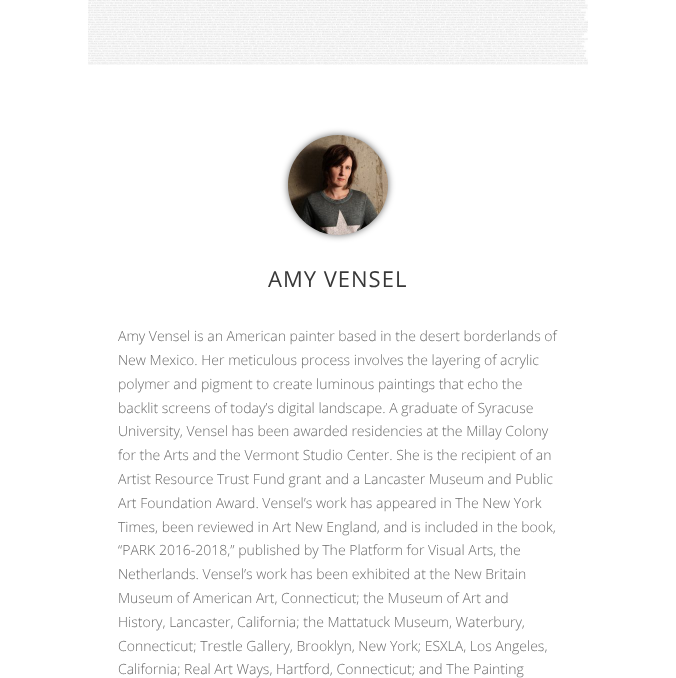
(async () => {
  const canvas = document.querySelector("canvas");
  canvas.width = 676;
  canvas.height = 678;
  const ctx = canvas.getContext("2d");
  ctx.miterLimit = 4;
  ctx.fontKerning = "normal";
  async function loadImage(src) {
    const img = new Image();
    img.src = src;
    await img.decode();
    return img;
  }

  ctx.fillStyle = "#ffffff";
  ctx.fillRect(0, 0, 676, 678);
  ctx.drawImage(await loadImage("img/1.png"), 88, 0, 500, 65);
  ctx.fillStyle = "rgba(0, 0, 0, 0.6)";
  ctx.filter = "blur(3.5px)";
  ctx.beginPath();
  ctx.roundRect(288, 135, 100, 100, 50);
  ctx.fill();
  ctx.filter = "none";
  ctx.drawImage(await loadImage("img/2.png"), 288, 135, 100, 100);
  ctx.letterSpacing = "1px";
  ctx.font = "22px Open Sans";
  ctx.fillStyle = "#383838";
  ctx.fillText("AMY VENSEL", 268, 287);
  ctx.letterSpacing = "0px";
  ctx.font = "300 14px Open Sans";
  ctx.fillStyle = "#6b6b6b";
  for (const [text, x, y] of [
    ["Amy Vensel is an American painter based in the desert borderlands of", 118, 341],
    ["New Mexico. Her meticulous process involves the layering of acrylic", 118, 365],
    ["polymer and pigment to create luminous paintings that echo the", 118, 389],
    ["backlit screens of today’s digital landscape. A graduate of Syracuse", 118, 413],
    ["University, Vensel has been awarded residencies at the Millay Colony", 118, 436],
    ["for the Arts and the Vermont Studio Center. She is the recipient of an", 118, 460],
    ["Artist Resource Trust Fund grant and a Lancaster Museum and Public", 118, 484],
    ["Art Foundation Award. Vensel’s work has appeared in The New York", 118, 508],
    ["Times, been reviewed in Art New England, and is included in the book,", 118, 532],
    ["“PARK 2016-2018,” published by The Platform for Visual Arts, the", 118, 555],
    ["Netherlands. Vensel’s work has been exhibited at the New Britain", 118, 579],
    ["Museum of American Art, Connecticut; the Museum of Art and", 118, 603],
    ["History, Lancaster, California; the Mattatuck Museum, Waterbury,", 118, 627],
    ["Connecticut; Trestle Gallery, Brooklyn, New York; ESXLA, Los Angeles,", 118, 651],
    ["California; Real Art Ways, Hartford, Connecticut; and The Painting", 118, 674],
  ]) {
    ctx.fillText(text, x, y);
  }
})();
